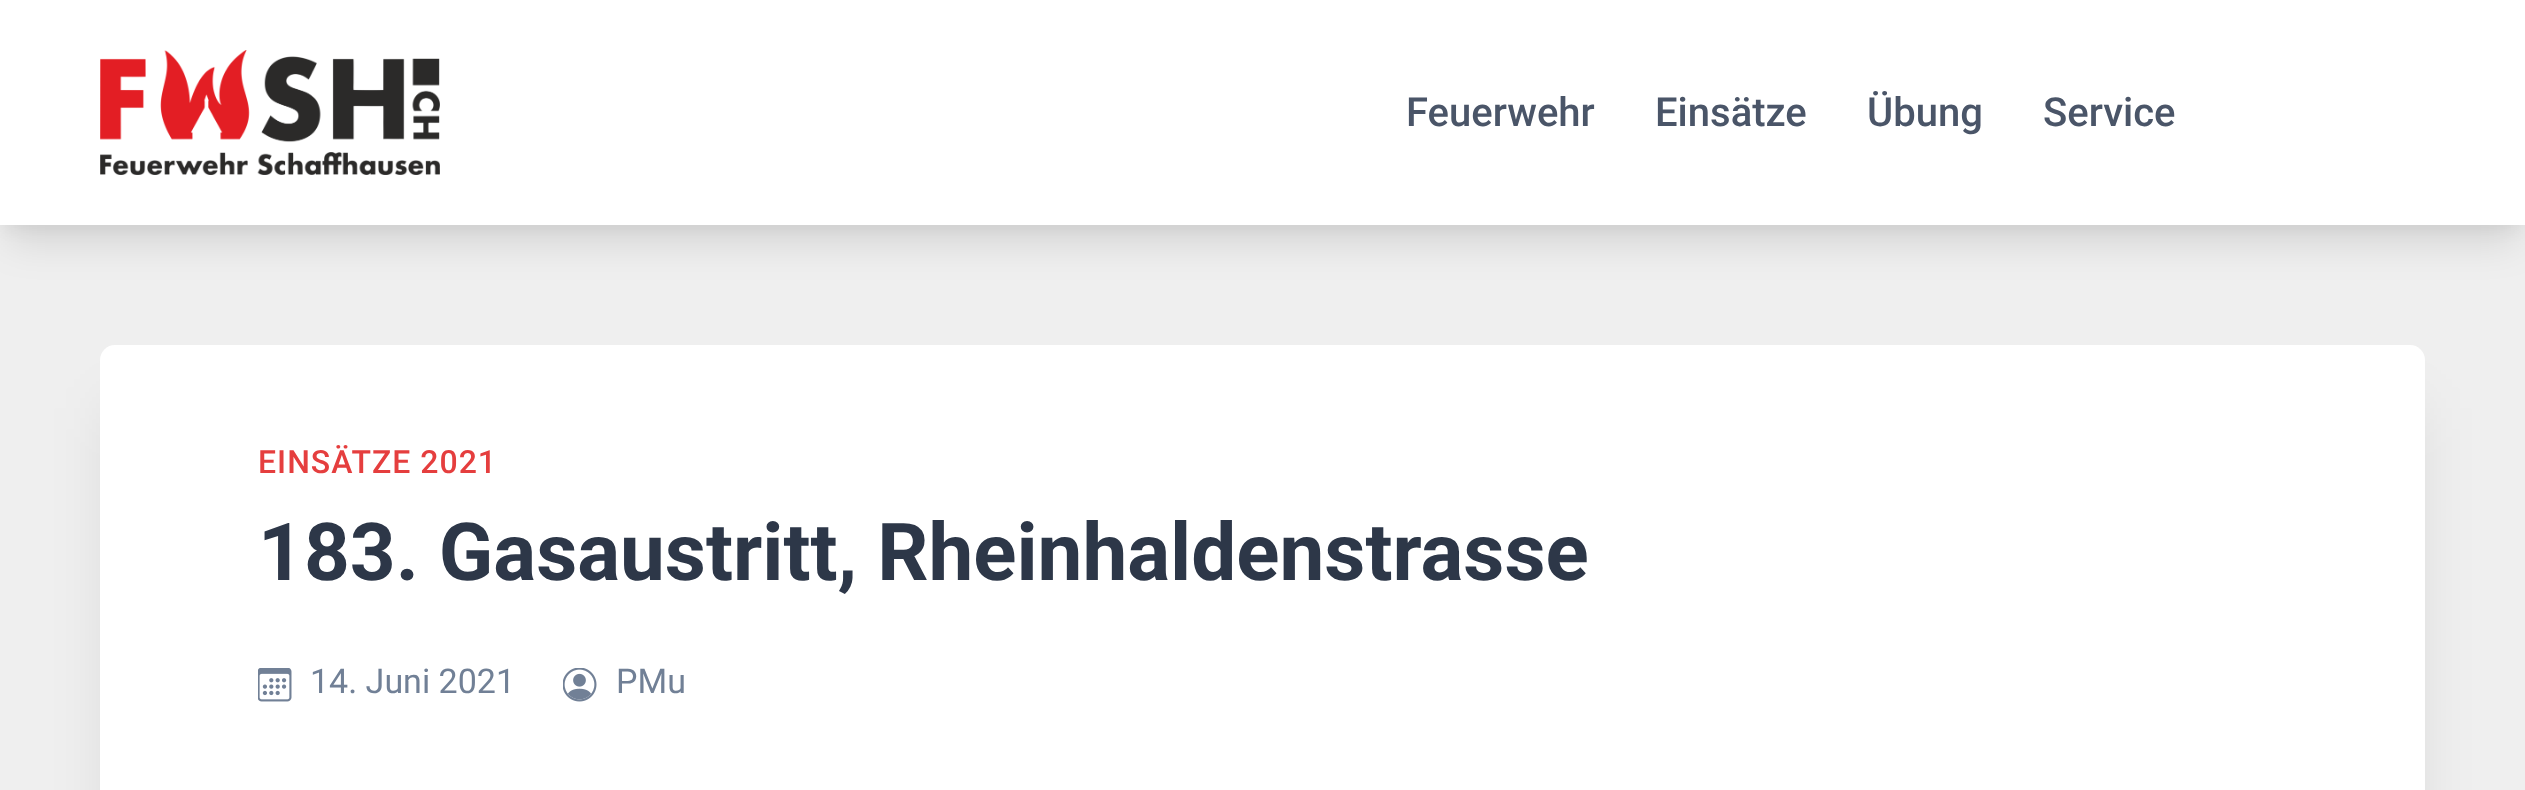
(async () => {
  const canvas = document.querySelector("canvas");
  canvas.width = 2525;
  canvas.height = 790;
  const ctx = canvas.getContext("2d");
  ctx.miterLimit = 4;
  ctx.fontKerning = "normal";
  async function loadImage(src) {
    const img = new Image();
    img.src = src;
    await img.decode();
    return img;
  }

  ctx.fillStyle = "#efefef";
  ctx.fillRect(0, 0, 2525, 790);
  ctx.fillStyle = "rgba(0, 0, 0, 0.05)";
  ctx.filter = "blur(7.5px)";
  ctx.beginPath();
  ctx.rect(5, 15, 2515, 215);
  ctx.fill();
  ctx.filter = "none";
  ctx.fillStyle = "rgba(0, 0, 0, 0.1)";
  ctx.filter = "blur(19px)";
  ctx.beginPath();
  ctx.rect(8, 33, 2510, 210);
  ctx.fill();
  ctx.filter = "none";
  ctx.fillStyle = "#ffffff";
  ctx.fillRect(0, 0, 2525, 225);
  ctx.drawImage(await loadImage("img/1.png"), 100, 50, 340, 125);
  ctx.fillStyle = "rgba(0, 0, 0, 0.1)";
  ctx.filter = "blur(31px)";
  ctx.beginPath();
  ctx.roundRect(113, 408, 2300, 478, 2.5);
  ctx.fill();
  ctx.filter = "none";
  ctx.fillStyle = "#ffffff";
  ctx.beginPath();
  ctx.roundRect(100, 345, 2325, 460, 15);
  ctx.fill();
  ctx.drawImage(await loadImage("img/2.png"), 258, 668, 34, 34);
  ctx.drawImage(await loadImage("img/3.png"), 563, 668, 34, 34);
  ctx.font = "500 40px Roboto";
  ctx.fillStyle = "#4a5568";
  for (const [text, x, y] of [
    ["Feuerwehr", 1406, 126],
    ["Einsätze", 1655, 126],
    ["Übung", 1867, 126],
    ["Service", 2043, 126],
  ]) {
    ctx.fillText(text, x, y);
  }
  ctx.letterSpacing = "1px";
  ctx.font = "500 32px Roboto";
  ctx.fillStyle = "#e53e3e";
  ctx.fillText("EINSÄTZE 2021", 258, 473);
  ctx.letterSpacing = "0px";
  ctx.font = "bold 80px Roboto";
  ctx.fillStyle = "#2d3748";
  ctx.fillText("183. Gasaustritt, Rheinhaldenstrasse", 258, 580);
  ctx.font = "34px Roboto";
  ctx.fillStyle = "#718096";
  ctx.fillText("14. Juni 2021", 310, 693);
  ctx.fillText("PMu", 616, 693);
})();
